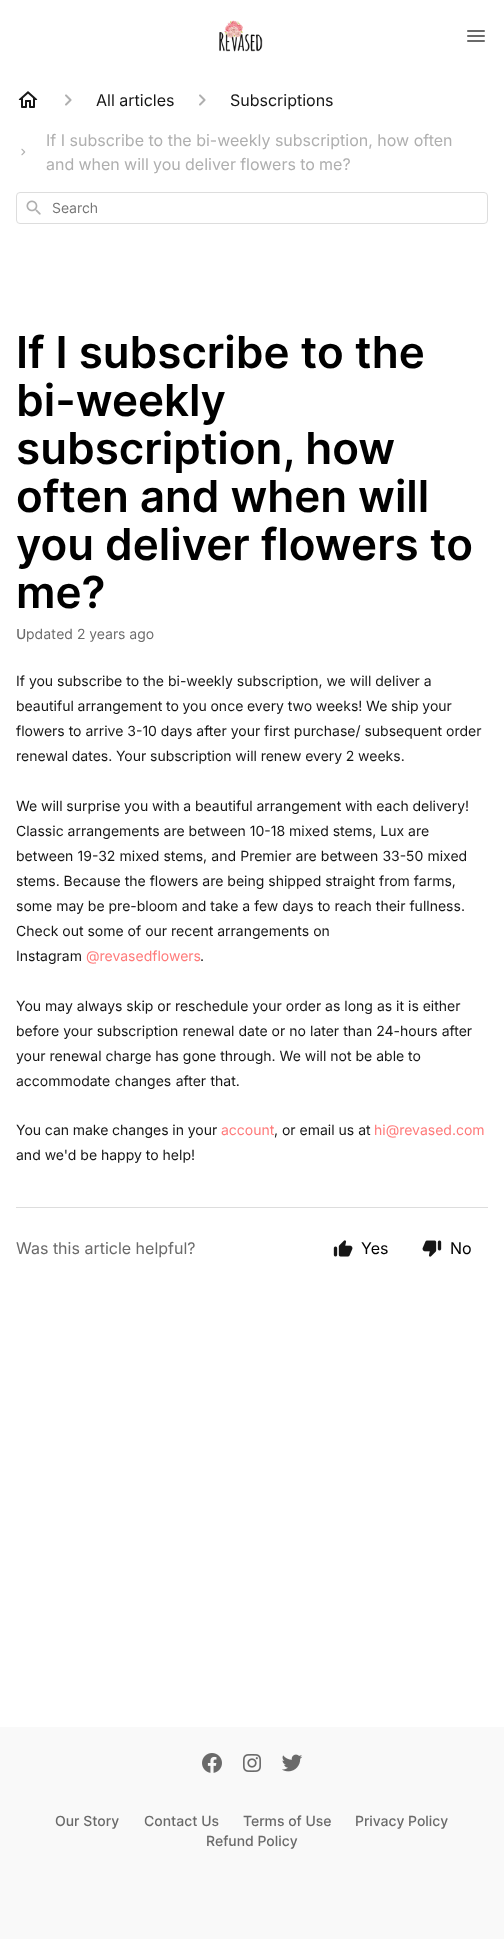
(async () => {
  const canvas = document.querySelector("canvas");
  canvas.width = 504;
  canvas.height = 1939;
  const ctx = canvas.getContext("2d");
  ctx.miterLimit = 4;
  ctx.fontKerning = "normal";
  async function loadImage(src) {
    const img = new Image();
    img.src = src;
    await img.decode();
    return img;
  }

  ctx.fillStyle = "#ffffff";
  ctx.fillRect(0, 0, 504, 1939);
  ctx.drawImage(await loadImage("img/1.png"), 219, 20, 44, 32);
  ctx.drawImage(await loadImage("img/2.png"), 467, 30, 18, 12);
  ctx.drawImage(await loadImage("img/3.png"), 18, 91, 20, 17);
  ctx.drawImage(await loadImage("img/4.png"), 65, 94, 7, 12);
  ctx.drawImage(await loadImage("img/4.png"), 199, 94, 7, 12);
  ctx.drawImage(await loadImage("img/5.png"), 21, 148, 5, 8);
  ctx.beginPath();
  ctx.roundRect(16.5, 192.5, 471, 31, 3.5);
  ctx.strokeStyle = "#dddddd";
  ctx.stroke();
  ctx.drawImage(await loadImage("img/6.png"), 26, 200, 15, 15);
  ctx.fillStyle = "#dddddd";
  ctx.fillRect(16, 1207, 472, 1);
  ctx.drawImage(await loadImage("img/7.png"), 333, 1240, 20, 17);
  ctx.drawImage(await loadImage("img/8.png"), 422, 1240, 20, 17);
  ctx.fillStyle = "#f9f9f9";
  ctx.fillRect(0, 1727, 504, 212);
  ctx.drawImage(await loadImage("img/9.png"), 202, 1753, 20, 20);
  ctx.drawImage(await loadImage("img/10.png"), 243, 1754, 18, 18);
  ctx.drawImage(await loadImage("img/11.png"), 282, 1754, 21, 18);
  ctx.font = "16px Inter";
  ctx.fillStyle = "#161616";
  ctx.fillText("All articles", 96, 106);
  ctx.fillText("Subscriptions", 230, 106);
  ctx.fillStyle = "#afafaf";
  ctx.fillText("If I subscribe to the bi-weekly subscription, how often", 46, 146);
  ctx.wordSpacing = "-0.25px";
  ctx.fillText("and when will you deliver flowers to me?", 46, 170);
  ctx.wordSpacing = "0px";
  ctx.font = "14px 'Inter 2'";
  ctx.fillStyle = "#757575";
  ctx.fillText("Search", 52, 213);
  ctx.font = "600 44px Inter";
  ctx.fillStyle = "#000000";
  for (const [text, x, y] of [
    ["If I subscribe to the", 16, 368],
    ["bi-weekly", 16, 416],
    ["subscription, how", 16, 464],
    ["often and when will", 16, 512],
    ["you deliver flowers to", 16, 560],
    ["me?", 16, 608],
  ]) {
    ctx.fillText(text, x, y);
  }
  ctx.font = "500 14px Noto Sans";
  ctx.fillStyle = "#6a6a6a";
  ctx.fillText("U", 16, 639);
  ctx.font = "14px 'Inter 2'";
  ctx.fillText("pdated 2 years ago", 26, 639);
  ctx.font = "14px Inter";
  ctx.fillStyle = "#161616";
  ctx.fillText("If you subscribe to the bi-weekly subscription, we will deliver a", 16, 686);
  ctx.wordSpacing = "-0.25px";
  ctx.fillText("beautiful arrangement to you once every two weeks! We ship your", 16, 711);
  ctx.wordSpacing = "0px";
  ctx.fillText("flowers to arrive 3-10 days after your first purchase/ subsequent order", 16, 736);
  ctx.wordSpacing = "-0.25px";
  ctx.fillText("renewal dates. Your subscription will renew every 2 weeks.", 16, 761);
  ctx.fillText("We will surprise you with a beautiful arrangement with each delivery!", 16, 811);
  ctx.wordSpacing = "0px";
  ctx.fillText("Classic arrangements are between 10-18 mixed stems, Lux are", 16, 836);
  ctx.wordSpacing = "0.25px";
  ctx.fillText("between 19-32 mixed stems, and Premier are between 33-50 mixed", 16, 861);
  ctx.wordSpacing = "0px";
  for (const [text, x, y] of [
    ["stems. Because the flowers are being shipped straight from farms,", 16, 886],
    ["some may be pre-bloom and take a few days to reach their fullness.", 16, 911],
    ["Check out some of our recent arrangements on", 16, 936],
    ["Instagram", 16, 961],
  ]) {
    ctx.fillText(text, x, y);
  }
  ctx.fillStyle = "#ff7a7a";
  ctx.fillText("@revasedflowers", 86, 961);
  ctx.fillStyle = "#161616";
  ctx.fillText(".", 200, 961);
  ctx.fillText("You may always skip or reschedule your order as long as it is either", 16, 1011);
  ctx.wordSpacing = "0.1px";
  ctx.fillText("before your subscription renewal date or no later than 24-hours after", 16, 1036);
  ctx.wordSpacing = "0px";
  ctx.fillText("your renewal charge has gone through. We will not be able to", 16, 1061);
  ctx.wordSpacing = "0.5px";
  ctx.fillText("accommodate changes after that.", 16, 1086);
  ctx.wordSpacing = "-0.25px";
  ctx.fillText("You can make changes in your", 16, 1135);
  ctx.wordSpacing = "0px";
  ctx.fillStyle = "#ff7a7a";
  ctx.fillText("account", 221, 1135);
  ctx.fillStyle = "#161616";
  ctx.fillText(", or email us at", 274, 1135);
  ctx.fillStyle = "#ff7a7a";
  ctx.fillText("hi@revased.com", 374, 1135);
  ctx.fillStyle = "#161616";
  ctx.fillText("and we'd be happy to help!", 16, 1160);
  ctx.font = "16px Inter";
  ctx.fillStyle = "#6a6a6a";
  ctx.fillText("Was this article helpful?", 16, 1254);
  ctx.fillStyle = "#000000";
  ctx.fillText("Yes", 361, 1254);
  ctx.fillText("No", 450, 1254);
  ctx.font = "500 14px Inter";
  ctx.fillStyle = "#6a6a6a";
  for (const [text, x, y] of [
    ["Our Story", 55, 1826],
    ["Contact Us", 144, 1826],
    ["Terms of Use", 243, 1826],
    ["Privacy Policy", 355, 1826],
    ["Refund Policy", 206, 1846],
  ]) {
    ctx.fillText(text, x, y);
  }
})();
